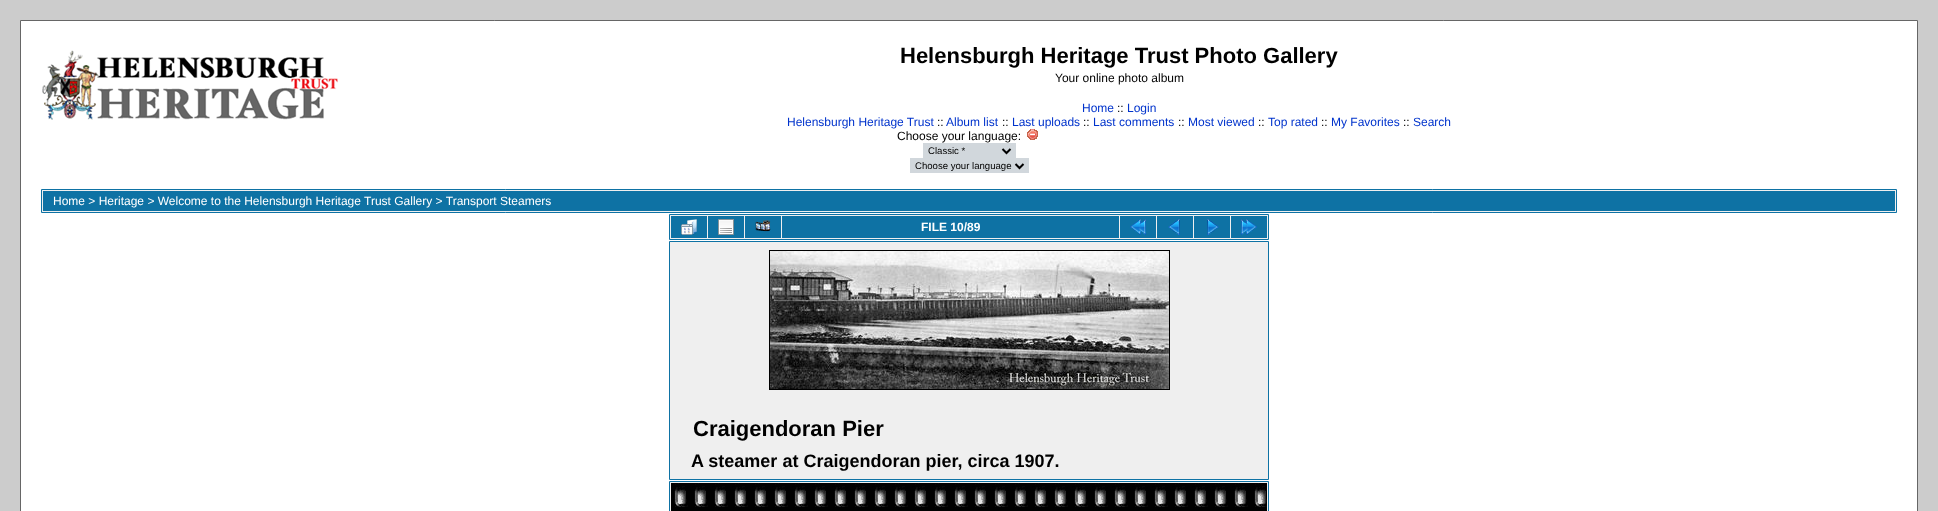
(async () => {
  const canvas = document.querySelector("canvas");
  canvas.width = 1938;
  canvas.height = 511;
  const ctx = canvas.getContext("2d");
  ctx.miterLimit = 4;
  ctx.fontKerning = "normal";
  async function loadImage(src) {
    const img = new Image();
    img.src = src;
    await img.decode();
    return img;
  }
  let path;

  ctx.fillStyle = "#cccccc";
  ctx.fillRect(0, 0, 1938, 511);
  ctx.fillStyle = "#ffffff";
  ctx.beginPath();
  ctx.rect(20.5, 20.5, 1897, 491);
  ctx.fill();
  ctx.strokeStyle = "#666666";
  ctx.stroke();
  ctx.drawImage(await loadImage("img/1.png"), 42, 50, 296, 70);
  ctx.drawImage(await loadImage("img/2.png"), 1027, 129, 11, 11);
  ctx.fillStyle = "#d1d7dc";
  ctx.fillRect(923, 143, 93, 15);
  path = new Path2D("M1002.5 149L1006.5 153L1010.5 149");
  ctx.strokeStyle = "#000000";
  ctx.lineWidth = 2;
  ctx.stroke(path);
  ctx.fillRect(910, 158, 119, 15);
  path = new Path2D("M1015.5 164L1019.5 168L1023.5 164");
  ctx.stroke(path);
  ctx.fillStyle = "#efefef";
  ctx.beginPath();
  ctx.rect(41.5, 189.5, 1855, 23);
  ctx.fill();
  ctx.strokeStyle = "#0e72a4";
  ctx.lineWidth = 1;
  ctx.stroke();
  ctx.fillStyle = "#0e72a4";
  ctx.fillRect(43, 191, 1852, 20);
  ctx.fillStyle = "#efefef";
  ctx.beginPath();
  ctx.rect(669.5, 214.5, 599, 25);
  ctx.fill();
  ctx.stroke();
  ctx.fillStyle = "#0e72a4";
  ctx.fillRect(671, 216, 36, 22);
  ctx.drawImage(await loadImage("img/3.png"), 681, 219, 16, 16);
  ctx.fillRect(708, 216, 36, 22);
  ctx.drawImage(await loadImage("img/4.png"), 718, 219, 16, 16);
  ctx.fillRect(745, 216, 36, 22);
  ctx.drawImage(await loadImage("img/5.png"), 755, 220, 16, 12);
  ctx.fillRect(782, 216, 337, 22);
  ctx.fillRect(1120, 216, 36, 22);
  ctx.drawImage(await loadImage("img/6.png"), 1130, 219, 16, 16);
  ctx.fillRect(1157, 216, 36, 22);
  ctx.drawImage(await loadImage("img/7.png"), 1168, 219, 12, 16);
  ctx.fillRect(1194, 216, 36, 22);
  ctx.drawImage(await loadImage("img/8.png"), 1207, 219, 12, 16);
  ctx.fillRect(1231, 216, 36, 22);
  ctx.drawImage(await loadImage("img/9.png"), 1241, 219, 16, 16);
  ctx.fillStyle = "#efefef";
  ctx.beginPath();
  ctx.rect(669.5, 241.5, 599, 238);
  ctx.fill();
  ctx.stroke();
  ctx.strokeStyle = "#000000";
  ctx.strokeRect(769.5, 250.5, 400, 139);
  ctx.drawImage(await loadImage("img/10.png"), 770, 251, 399, 138);
  ctx.beginPath();
  ctx.rect(669.5, 481.5, 599, 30);
  ctx.fill();
  ctx.strokeStyle = "#0e72a4";
  ctx.stroke();
  ctx.drawImage(await loadImage("img/11.png"), 671, 483, 596, 28);
  ctx.font = "bold 22px Liberation Sans";
  ctx.fillStyle = "#000000";
  ctx.fillText("Helensburgh Heritage Trust Photo Gallery", 900, 63);
  ctx.font = "12px Liberation Sans";
  ctx.fillText("Your online photo album", 1055, 82);
  ctx.fillStyle = "#0033cc";
  ctx.fillText("Home", 1082, 112);
  ctx.fillStyle = "#000000";
  ctx.fillText("::", 1117, 112);
  ctx.fillStyle = "#0033cc";
  ctx.fillText("Login", 1127, 112);
  ctx.fillText("Helensburgh Heritage Trust", 787, 126);
  ctx.fillStyle = "#000000";
  ctx.fillText("::", 937, 126);
  ctx.fillStyle = "#0033cc";
  ctx.fillText("Album list", 946, 126);
  ctx.fillStyle = "#000000";
  ctx.fillText("::", 1002, 126);
  ctx.fillStyle = "#0033cc";
  ctx.fillText("Last uploads", 1012, 126);
  ctx.fillStyle = "#000000";
  ctx.fillText("::", 1083, 126);
  ctx.fillStyle = "#0033cc";
  ctx.fillText("Last comments", 1093, 126);
  ctx.fillStyle = "#000000";
  ctx.fillText("::", 1178, 126);
  ctx.fillStyle = "#0033cc";
  ctx.fillText("Most viewed", 1188, 126);
  ctx.fillStyle = "#000000";
  ctx.fillText("::", 1258, 126);
  ctx.fillStyle = "#0033cc";
  ctx.fillText("Top rated", 1268, 126);
  ctx.fillStyle = "#000000";
  ctx.fillText("::", 1321, 126);
  ctx.fillStyle = "#0033cc";
  ctx.fillText("My Favorites", 1331, 126);
  ctx.fillStyle = "#000000";
  ctx.fillText("::", 1403, 126);
  ctx.fillStyle = "#0033cc";
  ctx.fillText("Search", 1413, 126);
  ctx.fillStyle = "#000000";
  ctx.fillText("Choose your language:", 897, 140);
  ctx.font = "9.6px Liberation Sans";
  ctx.fillText("Classic *", 928, 154);
  ctx.fillText("Choose your language", 915, 169);
  ctx.font = "12px Liberation Sans";
  ctx.fillStyle = "#ffffff";
  ctx.fillText("Home > Heritage > Welcome to the Helensburgh Heritage Trust Gallery > Transport Steamers", 53, 205);
  ctx.font = "bold 12px Liberation Sans";
  ctx.fillText("FILE 10/89", 921, 231);
  ctx.font = "bold 22px Liberation Sans";
  ctx.fillStyle = "#000000";
  ctx.fillText("Craigendoran Pier", 693, 436);
  ctx.font = "bold 18px Liberation Sans";
  ctx.fillText("A steamer at Craigendoran pier, circa 1907.", 691, 467);
})();
